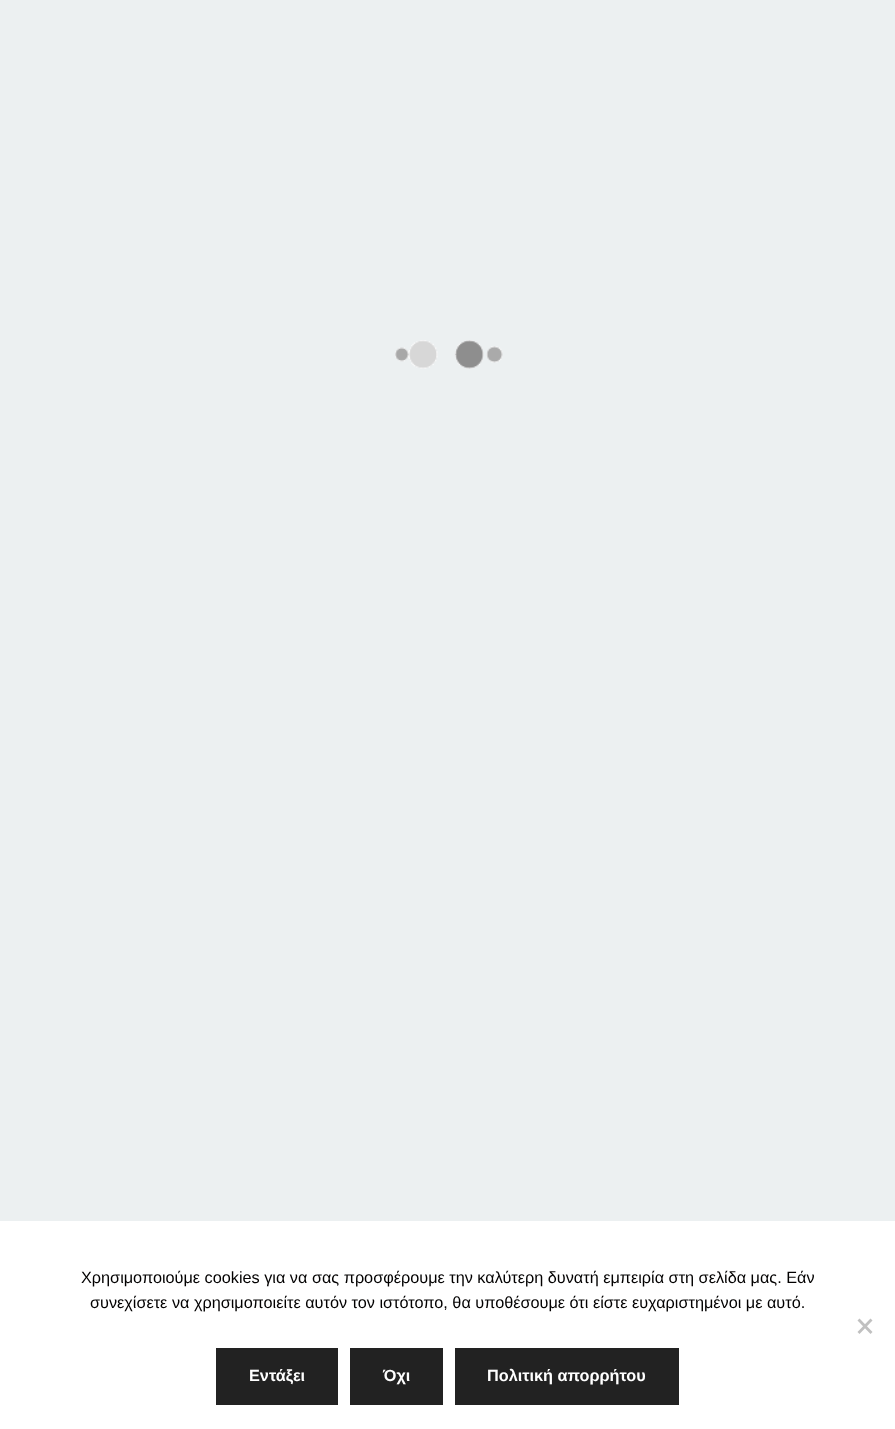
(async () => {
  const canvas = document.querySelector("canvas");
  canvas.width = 895;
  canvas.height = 1429;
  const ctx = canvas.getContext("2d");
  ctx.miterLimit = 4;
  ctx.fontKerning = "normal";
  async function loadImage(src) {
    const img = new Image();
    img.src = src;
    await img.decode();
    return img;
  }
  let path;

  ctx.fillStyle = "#ecf0f1";
  ctx.fillRect(0, 0, 895, 1429);
  ctx.drawImage(await loadImage("img/1.png"), 395, 340, 108, 29);
  ctx.fillStyle = "#ffffff";
  ctx.fillRect(0, 1221, 895, 208);
  ctx.fillStyle = "#c0c0c0";
  path = new Path2D("M870.5 1318.5L872.5 1320.5L859.5 1334L857.5 1332Z");
  ctx.fill(path);
  path = new Path2D("M857.5 1320.5L859.5 1318.5L872.5 1332L870.5 1334Z");
  ctx.fill(path);
  for (const [x, y, w, h, color] of [
    [216, 1348, 122, 57, "#222222"],
    [350, 1348, 93, 57, "#222222"],
    [455, 1348, 224, 57, "#222222"],
  ]) {
    ctx.fillStyle = color;
    ctx.fillRect(x, y, w, h);
  }
  ctx.font = "16.25px Liberation Sans";
  ctx.fillStyle = "#020000";
  ctx.fillText("Χρησιμοποιούμε cookies για να σας προσφέρουμε την καλύτερη δυνατή εμπειρία στη σελίδα μας. Εάν", 81, 1283);
  ctx.fillText("συνεχίσετε να χρησιμοποιείτε αυτόν τον ιστότοπο, θα υποθέσουμε ότι είστε ευχαριστημένοι με αυτό.", 90, 1308);
  ctx.font = "bold 16.25px Liberation Sans";
  ctx.fillStyle = "#ffffff";
  for (const [text, x, y] of [
    ["Εντάξει", 249, 1381],
    ["Όχι", 383, 1381],
    ["Πολιτική απορρήτου", 487, 1381],
  ]) {
    ctx.fillText(text, x, y);
  }
})();
